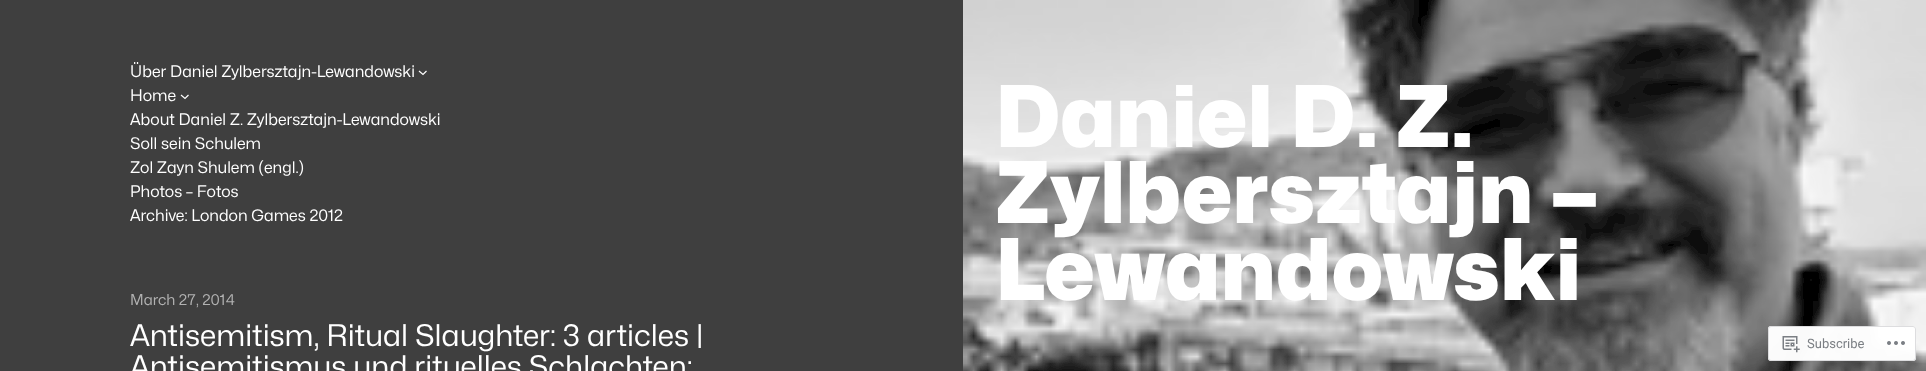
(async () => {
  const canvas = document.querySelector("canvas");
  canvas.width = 1926;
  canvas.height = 371;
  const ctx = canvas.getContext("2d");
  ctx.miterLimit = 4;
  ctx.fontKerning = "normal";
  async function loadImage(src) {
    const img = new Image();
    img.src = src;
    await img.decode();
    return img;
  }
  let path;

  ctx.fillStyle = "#3f3f3f";
  ctx.fillRect(0, 0, 1926, 371);
  path = new Path2D("M419 71L423 74.5L426.5 71");
  ctx.strokeStyle = "#ffffff";
  ctx.lineWidth = 1.2;
  ctx.stroke(path);
  path = new Path2D("M181 95L185 98.5L188.5 95");
  ctx.stroke(path);
  ctx.drawImage(await loadImage("img/1.png"), 963, 0, 963, 371);
  ctx.fillStyle = "rgba(255, 255, 255, 0.98)";
  ctx.beginPath();
  ctx.roundRect(1768, 326, 148, 35, 3);
  ctx.fill();
  ctx.beginPath();
  ctx.roundRect(1768.5, 326.5, 147, 34, 2.5);
  ctx.strokeStyle = "rgba(220, 220, 222, 0.98)";
  ctx.lineWidth = 1;
  ctx.stroke();
  ctx.drawImage(await loadImage("img/2.png"), 1782, 336, 18, 17);
  ctx.drawImage(await loadImage("img/3.png"), 1887, 341, 18, 4);
  ctx.font = "16px Mona Sans";
  ctx.fillStyle = "#ffffff";
  for (const [text, x, y] of [
    ["Über Daniel Zylbersztajn-Lewandowski", 130, 77],
    ["Home", 130, 101],
    ["About Daniel Z. Zylbersztajn-Lewandowski", 130, 125],
    ["Soll sein Schulem", 130, 149],
    ["Zol Zayn Shulem (engl.)", 130, 173],
    ["Photos – Fotos", 130, 197],
    ["Archive: London Games 2012", 130, 221],
  ]) {
    ctx.fillText(text, x, y);
  }
  ctx.font = "15px Mona Sans";
  ctx.fillStyle = "#b2b2b2";
  ctx.fillText("March 27, 2014", 130, 305);
  ctx.font = "30px Mona Sans";
  ctx.fillStyle = "#ffffff";
  ctx.fillText("Antisemitism, Ritual Slaughter: 3 articles |", 130, 346);
  ctx.fillText("Antisemitismus und rituelles Schlachten:", 130, 377);
  ctx.font = "900 85px Mona Sans";
  for (const [text, x, y] of [
    ["Daniel D. Z.", 995, 147],
    ["Zylbersztajn –", 995, 223],
    ["Lewandowski", 995, 300],
  ]) {
    ctx.fillText(text, x, y);
  }
  ctx.font = "13px Roboto";
  ctx.fillStyle = "#7b7f84";
  ctx.fillText("Subscribe", 1807, 348);
})();
